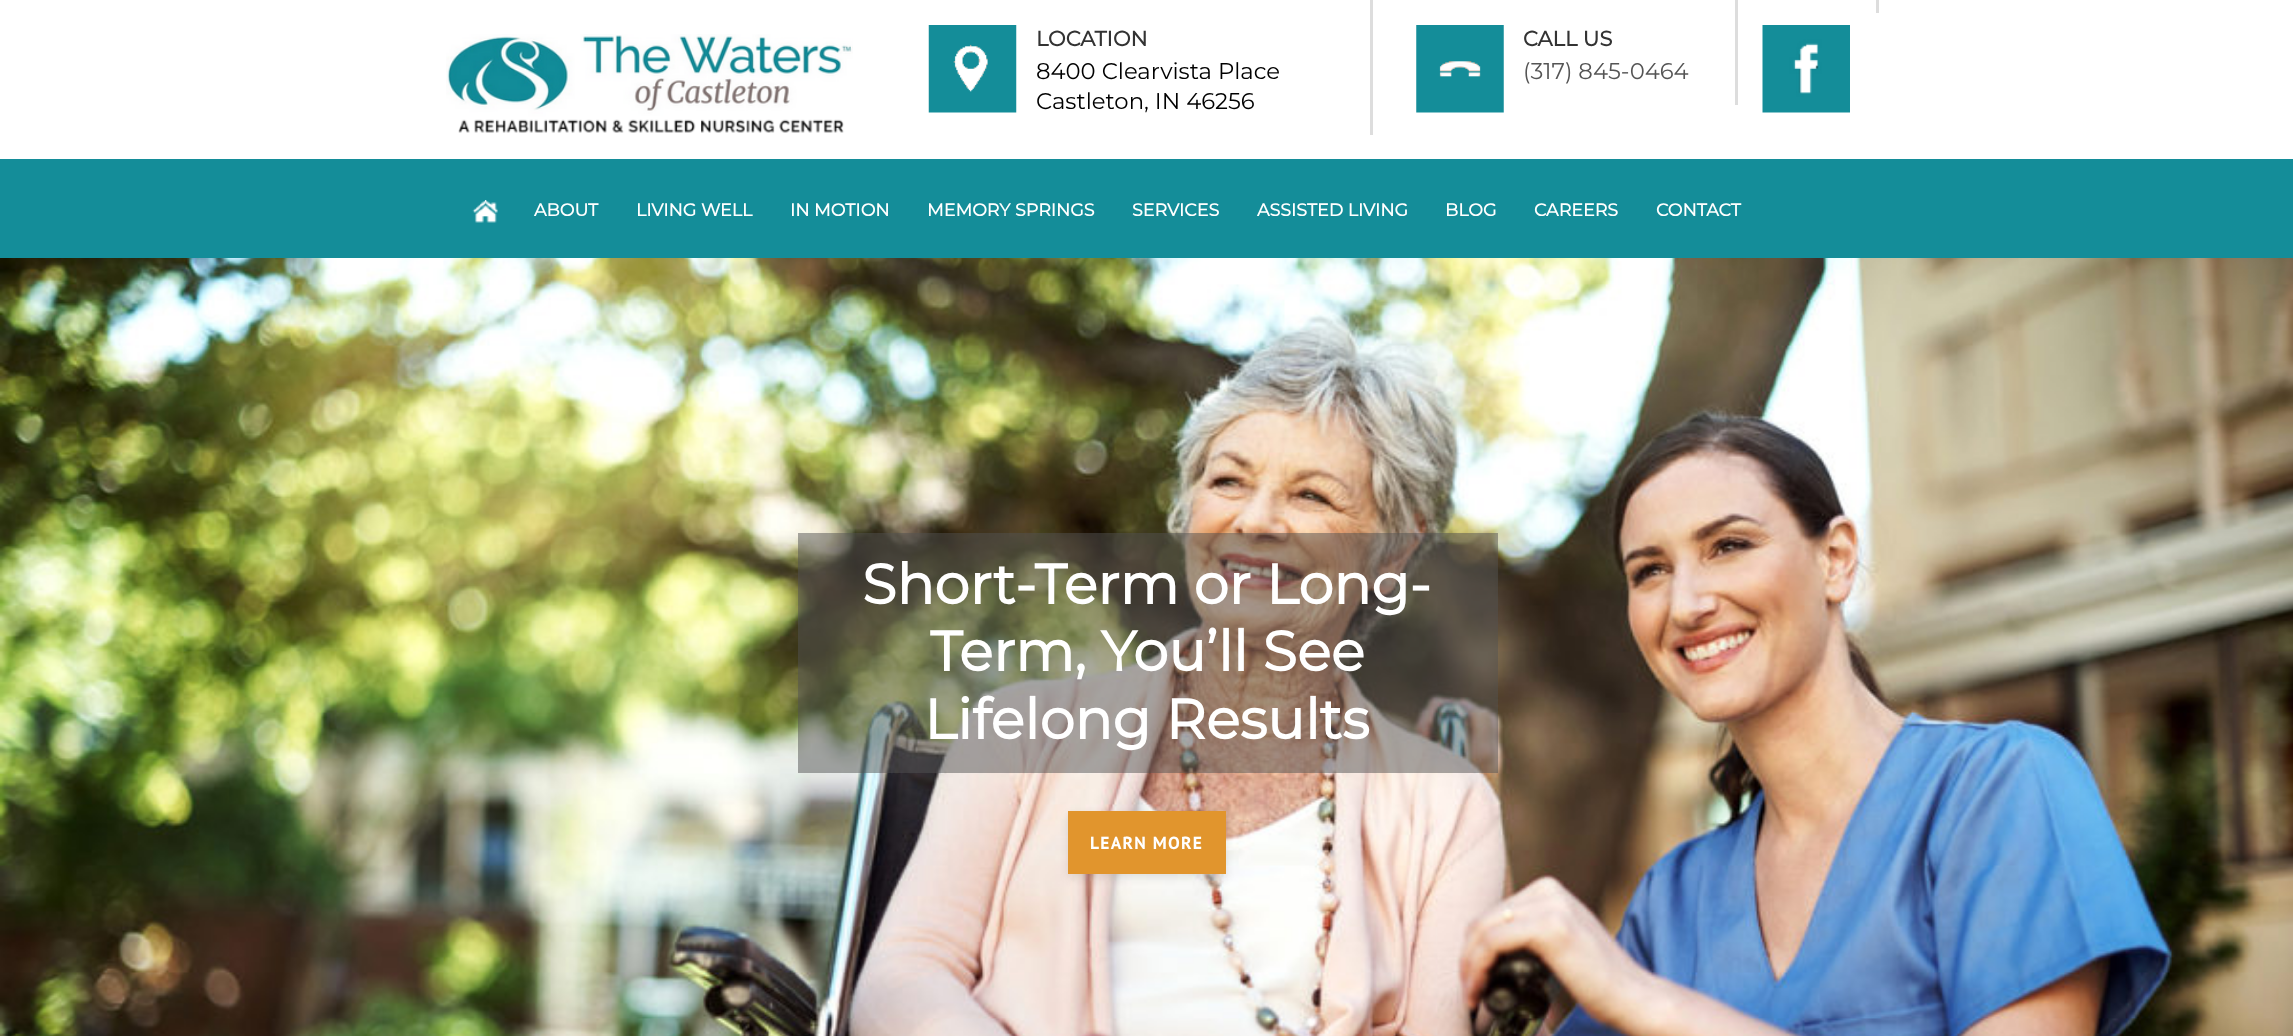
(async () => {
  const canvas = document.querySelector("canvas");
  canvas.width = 2293;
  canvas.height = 1036;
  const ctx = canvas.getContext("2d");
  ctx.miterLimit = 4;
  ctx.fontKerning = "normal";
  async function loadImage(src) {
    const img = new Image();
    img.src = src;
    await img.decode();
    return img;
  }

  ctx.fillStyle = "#ffffff";
  ctx.fillRect(0, 0, 2293, 1036);
  ctx.drawImage(await loadImage("img/1.png"), 446, 34, 407, 99);
  ctx.fillStyle = "#dddddd";
  ctx.fillRect(1370, 0, 3, 135);
  ctx.drawImage(await loadImage("img/2.png"), 928, 25, 89, 88);
  ctx.fillRect(1735, 0, 3, 105);
  ctx.drawImage(await loadImage("img/3.png"), 1416, 25, 88, 88);
  ctx.fillRect(1876, 0, 3, 13);
  ctx.drawImage(await loadImage("img/4.png"), 1762, 25, 88, 88);
  ctx.fillStyle = "#148d99";
  ctx.fillRect(0, 159, 2293, 99);
  ctx.drawImage(await loadImage("img/5.png"), 472, 200, 26, 23);
  ctx.drawImage(await loadImage("img/6.png"), 0, 258, 2293, 778);
  ctx.fillStyle = "rgba(81, 81, 81, 0.5)";
  ctx.fillRect(798, 533, 700, 240);
  ctx.fillStyle = "rgba(0, 0, 0, 0.1)";
  ctx.filter = "blur(4px)";
  ctx.beginPath();
  ctx.rect(1068, 815, 158, 63);
  ctx.fill();
  ctx.filter = "none";
  ctx.fillStyle = "#e1952d";
  ctx.fillRect(1068, 811, 158, 63);
  ctx.font = "bold 21px Montserrat";
  ctx.fillStyle = "#333333";
  ctx.fillText("LOCATION", 1036, 46);
  ctx.font = "100 22.75px Montserrat";
  ctx.fillStyle = "#000000";
  ctx.fillText("8400 Clearvista Place", 1036, 79);
  ctx.fillText("Castleton, IN 46256", 1036, 109);
  ctx.font = "bold 21px Montserrat";
  ctx.fillStyle = "#333333";
  ctx.fillText("CALL US", 1523, 46);
  ctx.font = "100 22.75px Montserrat";
  ctx.fillStyle = "#555555";
  ctx.fillText("(317) 845-0464", 1523, 79);
  ctx.font = "bold 17.5px Montserrat";
  ctx.fillStyle = "#ffffff";
  for (const [text, x, y] of [
    ["ABOUT", 534, 216],
    ["LIVING WELL", 636, 216],
    ["IN MOTION", 790, 216],
    ["MEMORY SPRINGS", 927, 216],
    ["SERVICES", 1132, 216],
    ["ASSISTED LIVING", 1257, 216],
    ["BLOG", 1445, 216],
    ["CAREERS", 1534, 216],
    ["CONTACT", 1656, 216],
  ]) {
    ctx.fillText(text, x, y);
  }
  ctx.font = "bold 56px Montserrat";
  for (const [text, x, y] of [
    ["Short-Term or Long-", 862, 604],
    ["Term, You’ll See", 930, 671],
    ["Lifelong Results", 924, 739],
  ]) {
    ctx.fillText(text, x, y);
  }
  ctx.letterSpacing = "1.25px";
  ctx.font = "bold 17.5px PT Sans";
  ctx.fillText("LEARN MORE", 1090, 849);
})();
